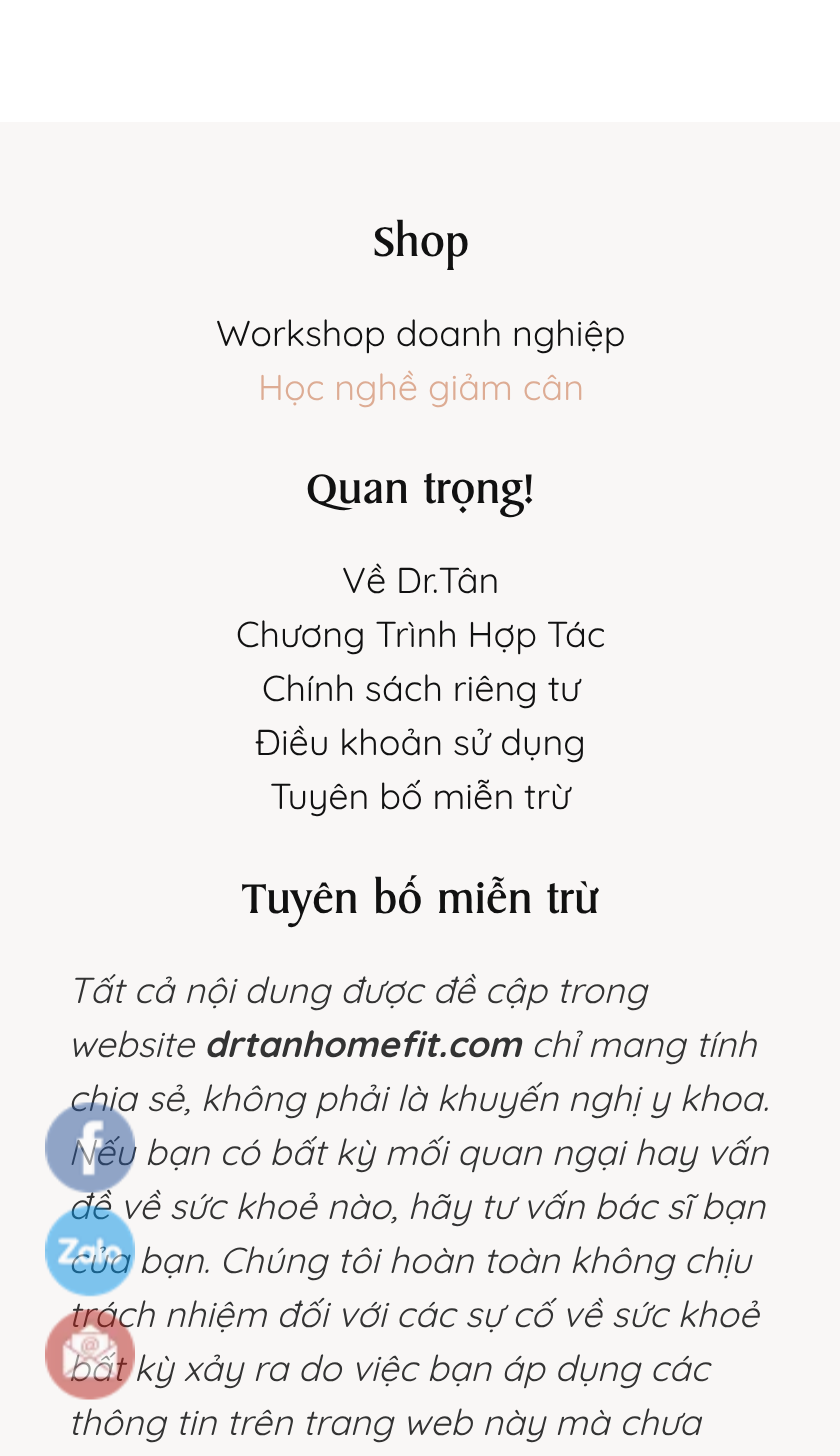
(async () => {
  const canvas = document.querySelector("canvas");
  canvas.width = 840;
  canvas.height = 1456;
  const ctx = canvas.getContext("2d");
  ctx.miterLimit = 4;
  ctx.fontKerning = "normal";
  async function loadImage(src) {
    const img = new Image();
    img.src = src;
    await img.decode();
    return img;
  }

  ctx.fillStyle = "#ffffff";
  ctx.fillRect(0, 0, 840, 1456);
  ctx.fillStyle = "#f9f7f6";
  ctx.fillRect(0, 122, 840, 1334);
  ctx.font = "49.5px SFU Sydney";
  ctx.fillStyle = "#111111";
  ctx.fillText("Shop", 373, 256);
  ctx.font = "36px Quicksand";
  ctx.fillText("Workshop doanh nghiệp", 216, 346);
  ctx.fillStyle = "#ddac94";
  ctx.fillText("Học nghề giảm cân", 258, 400);
  ctx.font = "49.5px SFU Sydney";
  ctx.fillStyle = "#111111";
  ctx.fillText("Quan trọng!", 306, 503);
  ctx.font = "36px Quicksand";
  for (const [text, x, y] of [
    ["Về Dr.Tân", 342, 593],
    ["Chương Trình Hợp Tác", 236, 647],
    ["Chính sách riêng tư", 262, 701],
    ["Điều khoản sử dụng", 255, 755],
    ["Tuyên bố miễn trừ", 270, 809],
  ]) {
    ctx.fillText(text, x, y);
  }
  ctx.font = "49.5px SFU Sydney";
  ctx.fillText("Tuyên bố miễn trừ", 242, 913);
  ctx.font = "italic 36px Quicksand";
  ctx.fillStyle = "#333333";
  ctx.fillText("Tất cả nội dung được đề cập trong", 68, 1003);
  ctx.fillText("website", 68, 1057);
  ctx.font = "italic bold 36px Quicksand";
  ctx.fillText("drtanhomefit.com", 204, 1057);
  ctx.font = "italic 36px Quicksand";
  for (const [text, x, y] of [
    ["chỉ mang tính", 531, 1057],
    ["chia sẻ, không phải là khuyến nghị y khoa.", 68, 1111],
    ["Nếu bạn có bất kỳ mối quan ngại hay vấn", 68, 1165],
    ["đề về sức khoẻ nào, hãy tư vấn bác sĩ bạn", 68, 1219],
    ["của bạn. Chúng tôi hoàn toàn không chịu", 68, 1273],
    ["trách nhiệm đối với các sự cố về sức khoẻ", 68, 1327],
    ["bất kỳ xảy ra do việc bạn áp dụng các", 68, 1381],
    ["thông tin trên trang web này mà chưa", 68, 1435],
  ]) {
    ctx.fillText(text, x, y);
  }
  ctx.drawImage(await loadImage("img/1.png"), 45, 1102, 90, 91);
  ctx.drawImage(await loadImage("img/2.png"), 45, 1205, 90, 92);
  ctx.drawImage(await loadImage("img/3.png"), 45, 1309, 90, 91);
})();
